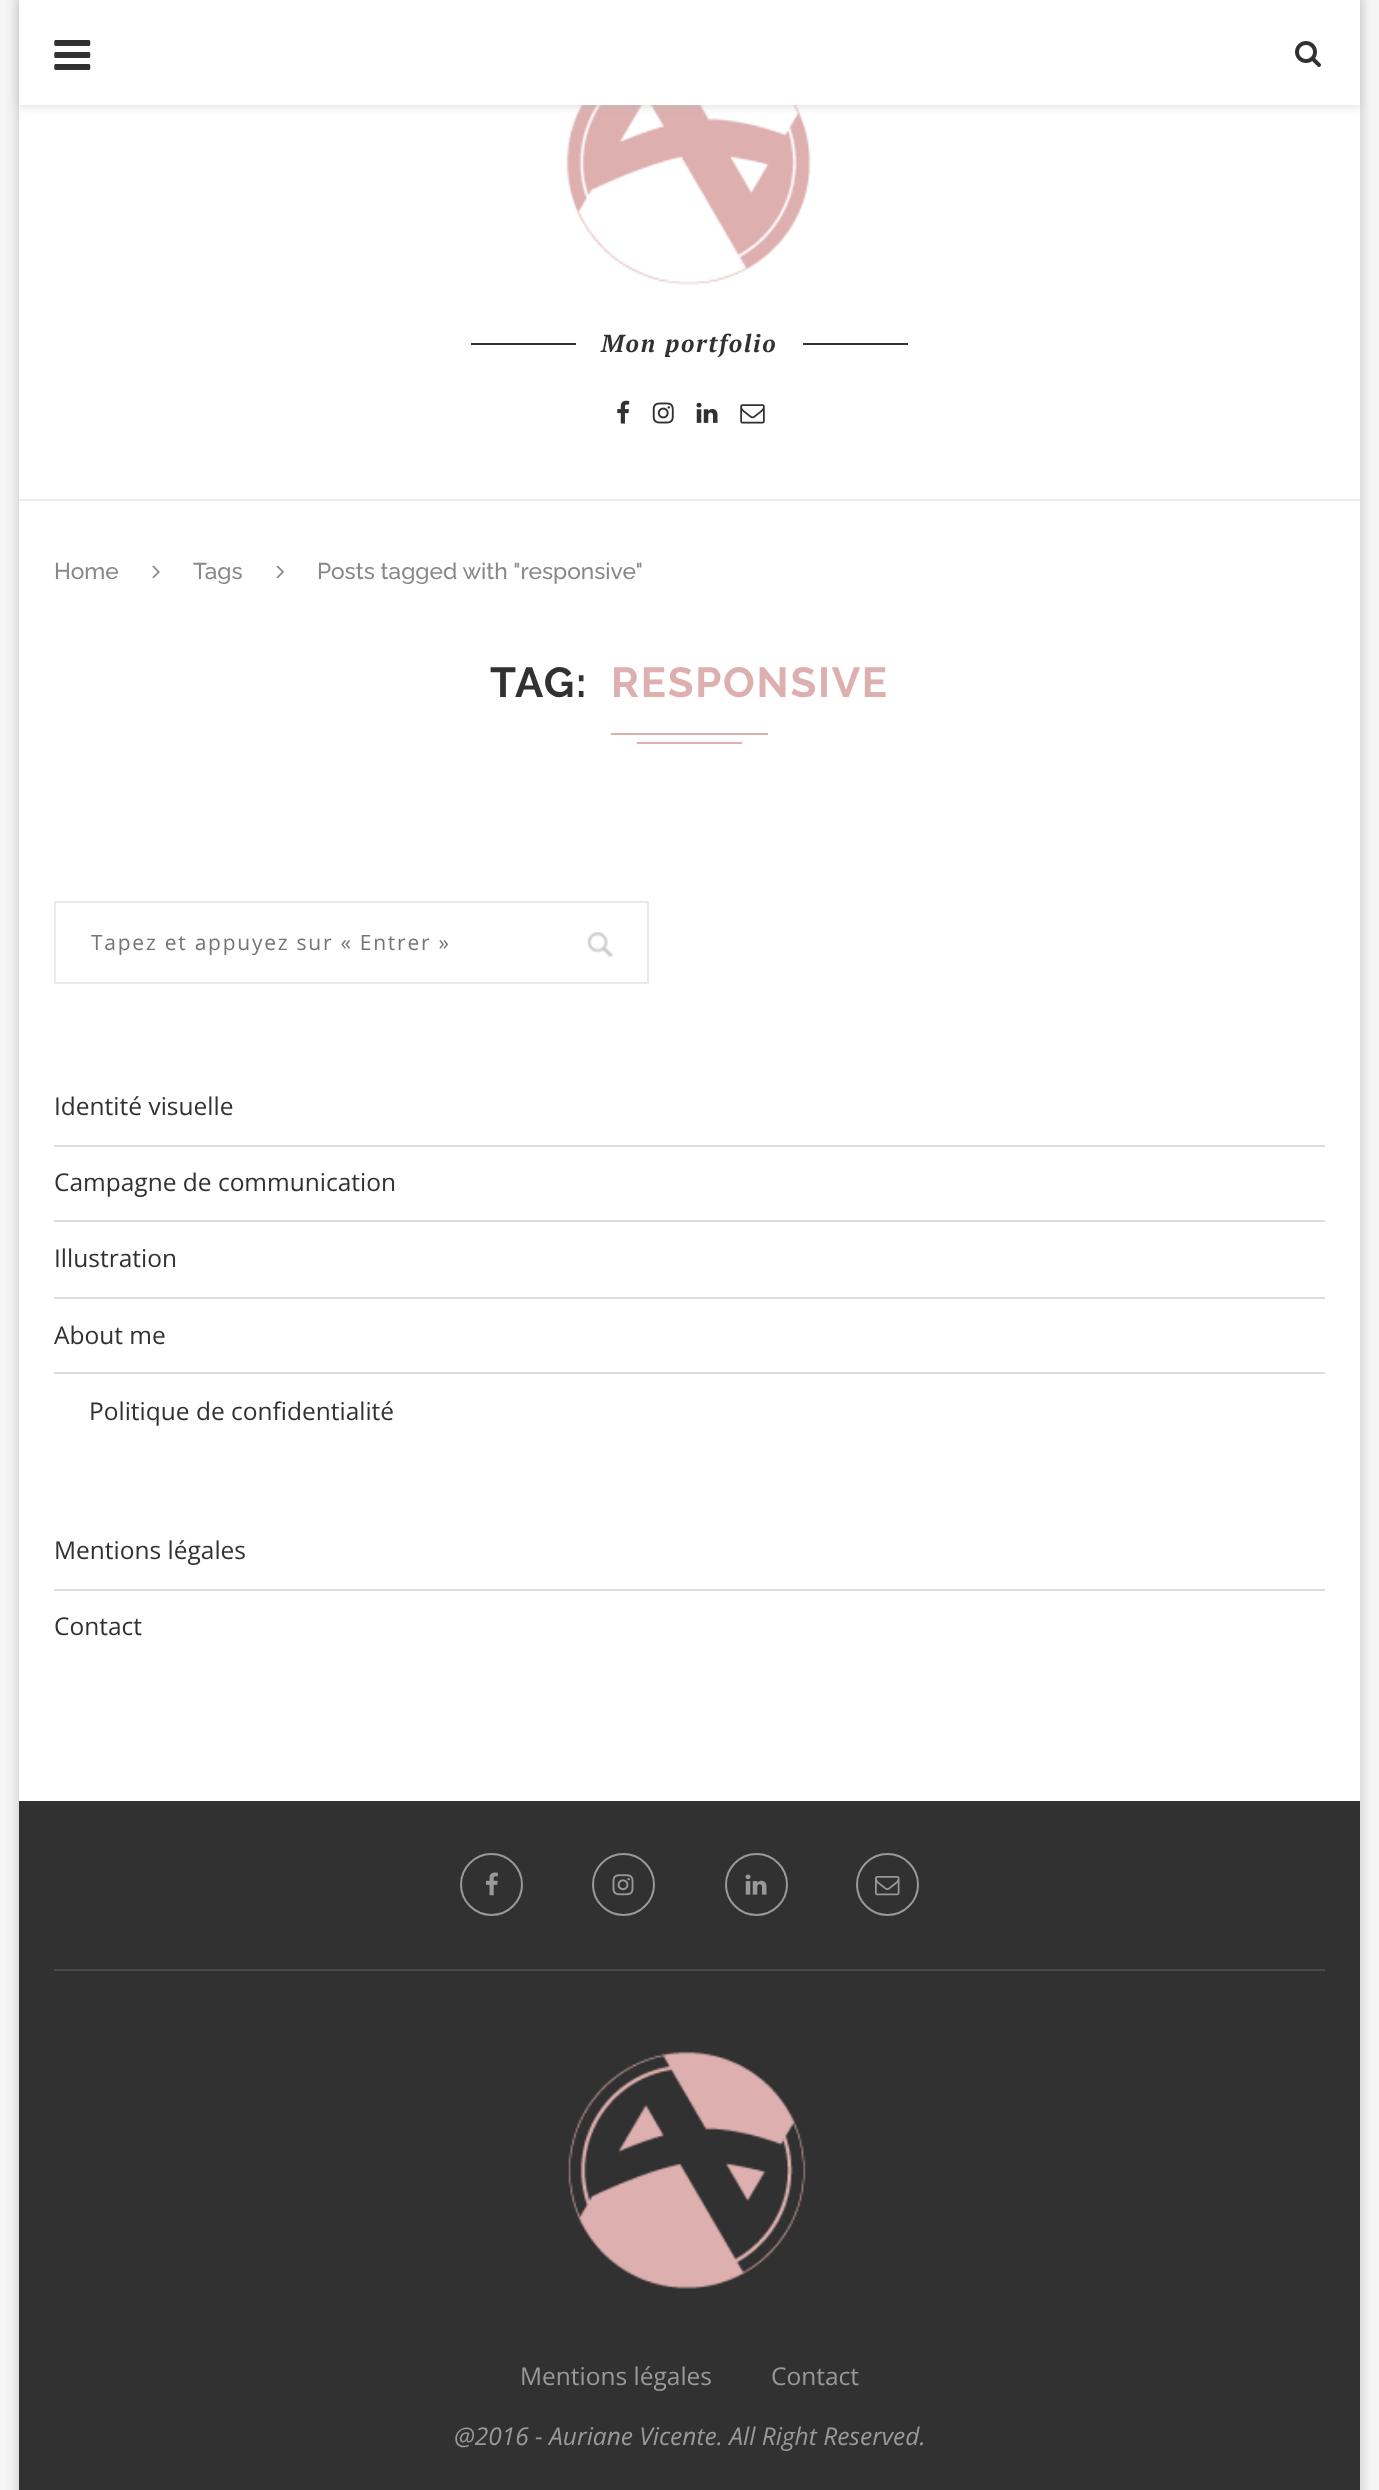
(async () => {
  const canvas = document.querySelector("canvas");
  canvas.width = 1379;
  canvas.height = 2490;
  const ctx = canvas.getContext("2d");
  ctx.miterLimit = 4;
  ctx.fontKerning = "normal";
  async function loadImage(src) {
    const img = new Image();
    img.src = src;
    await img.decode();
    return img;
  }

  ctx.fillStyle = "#f5f5f5";
  ctx.fillRect(0, 0, 1379, 2490);
  ctx.fillStyle = "rgba(0, 0, 0, 0.2)";
  ctx.filter = "blur(7px)";
  ctx.beginPath();
  ctx.rect(19, -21, 1341, 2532);
  ctx.fill();
  ctx.filter = "none";
  ctx.fillStyle = "#ffffff";
  ctx.fillRect(19, 105, 1341, 1696);
  ctx.drawImage(await loadImage("img/3.png"), 566, 105, 245, 180);
  ctx.fillStyle = "rgba(190, 190, 190, 0.46)";
  ctx.filter = "blur(4.5px)";
  ctx.beginPath();
  ctx.rect(19, 2, 1341, 105);
  ctx.fill();
  ctx.filter = "none";
  ctx.fillStyle = "#ffffff";
  ctx.fillRect(19, 0, 1341, 105);
  ctx.drawImage(await loadImage("img/1.png"), 54, 40, 37, 30);
  ctx.drawImage(await loadImage("img/2.png"), 1295, 41, 26, 26);
  for (const [x, y, w, h, color] of [
    [19, 499, 1341, 2, "#ececec"],
    [471, 343, 105, 2, "#313131"],
    [803, 343, 105, 2, "#313131"],
  ]) {
    ctx.fillStyle = color;
    ctx.fillRect(x, y, w, h);
  }
  ctx.drawImage(await loadImage("img/4.png"), 617, 400, 13, 24);
  ctx.drawImage(await loadImage("img/5.png"), 652, 402, 22, 22);
  ctx.drawImage(await loadImage("img/6.png"), 696, 402, 22, 21);
  ctx.drawImage(await loadImage("img/7.png"), 740, 404, 25, 20);
  ctx.drawImage(await loadImage("img/8.png"), 152, 565, 8, 14);
  ctx.drawImage(await loadImage("img/9.png"), 276, 565, 8, 14);
  ctx.fillStyle = "#ddafaf";
  ctx.fillRect(611, 733, 157, 2);
  ctx.fillRect(637, 742, 105, 2);
  ctx.drawImage(await loadImage("img/10.png"), 587, 932, 26, 25);
  ctx.strokeStyle = "#e9e9e9";
  ctx.lineWidth = 2;
  ctx.strokeRect(55, 902, 593, 81);
  for (const [x, y, w, h, color] of [
    [54, 1145, 1271, 2, "#dedede"],
    [54, 1220, 1271, 2, "#dedede"],
    [54, 1297, 1271, 2, "#dedede"],
    [54, 1372, 1271, 2, "#dedede"],
    [54, 1589, 1271, 2, "#dedede"],
    [19, 1801, 1341, 689, "#313131"],
    [54, 1969, 1271, 2, "#4a4a4a"],
  ]) {
    ctx.fillStyle = color;
    ctx.fillRect(x, y, w, h);
  }
  ctx.beginPath();
  ctx.arc(491.5, 1884.5, 30.5, 0, Math.PI * 2);
  ctx.strokeStyle = "#999999";
  ctx.stroke();
  ctx.drawImage(await loadImage("img/11.png"), 486, 1872, 12, 24);
  ctx.beginPath();
  ctx.arc(623.5, 1884.5, 30.5, 0, Math.PI * 2);
  ctx.stroke();
  ctx.drawImage(await loadImage("img/12.png"), 612, 1874, 22, 22);
  ctx.beginPath();
  ctx.arc(756.5, 1884.5, 30.5, 0, Math.PI * 2);
  ctx.stroke();
  ctx.drawImage(await loadImage("img/13.png"), 745, 1874, 22, 21);
  ctx.beginPath();
  ctx.arc(887.5, 1884.5, 30.5, 0, Math.PI * 2);
  ctx.stroke();
  ctx.drawImage(await loadImage("img/14.png"), 875, 1876, 25, 20);
  ctx.drawImage(await loadImage("img/15.png"), 568, 2051, 238, 238);
  ctx.letterSpacing = "1.75px";
  ctx.font = "italic bold 24.5px PT Serif";
  ctx.fillStyle = "#313131";
  ctx.fillText("Mon portfolio", 601, 352);
  ctx.letterSpacing = "0px";
  ctx.font = "500 22.75px Raleway";
  ctx.fillStyle = "#888888";
  for (const [text, x, y] of [
    ["Home", 54, 579],
    ["Tags", 193, 579],
    ["Posts tagged with \"responsive\"", 317, 579],
  ]) {
    ctx.fillText(text, x, y);
  }
  ctx.letterSpacing = "1.75px";
  ctx.font = "bold 42px Raleway";
  ctx.fillStyle = "#313131";
  ctx.fillText("TAG:", 490, 697);
  ctx.fillStyle = "#ddafaf";
  ctx.fillText("RESPONSIVE", 611, 697);
  ctx.font = "21px Open Sans";
  ctx.fillStyle = "#757575";
  ctx.fillText("Tapez et appuyez sur « Entrer »", 91, 950);
  ctx.letterSpacing = "0px";
  ctx.font = "24.5px Open Sans";
  ctx.fillStyle = "#313131";
  for (const [text, x, y] of [
    ["Identité visuelle", 54, 1115],
    ["Campagne de communication", 54, 1191],
    ["Illustration", 54, 1267],
    ["About me", 54, 1344],
    ["Politique de confidentialité", 89, 1420],
    ["Mentions légales", 54, 1559],
    ["Contact", 54, 1635],
  ]) {
    ctx.fillText(text, x, y);
  }
  ctx.fillStyle = "#999999";
  ctx.fillText("Mentions légales", 520, 2385);
  ctx.fillText("Contact", 771, 2385);
  ctx.font = "italic 24.5px Open Sans";
  ctx.fillText("@2016 - Auriane Vicente. All Right Reserved.", 454, 2445);
})();
